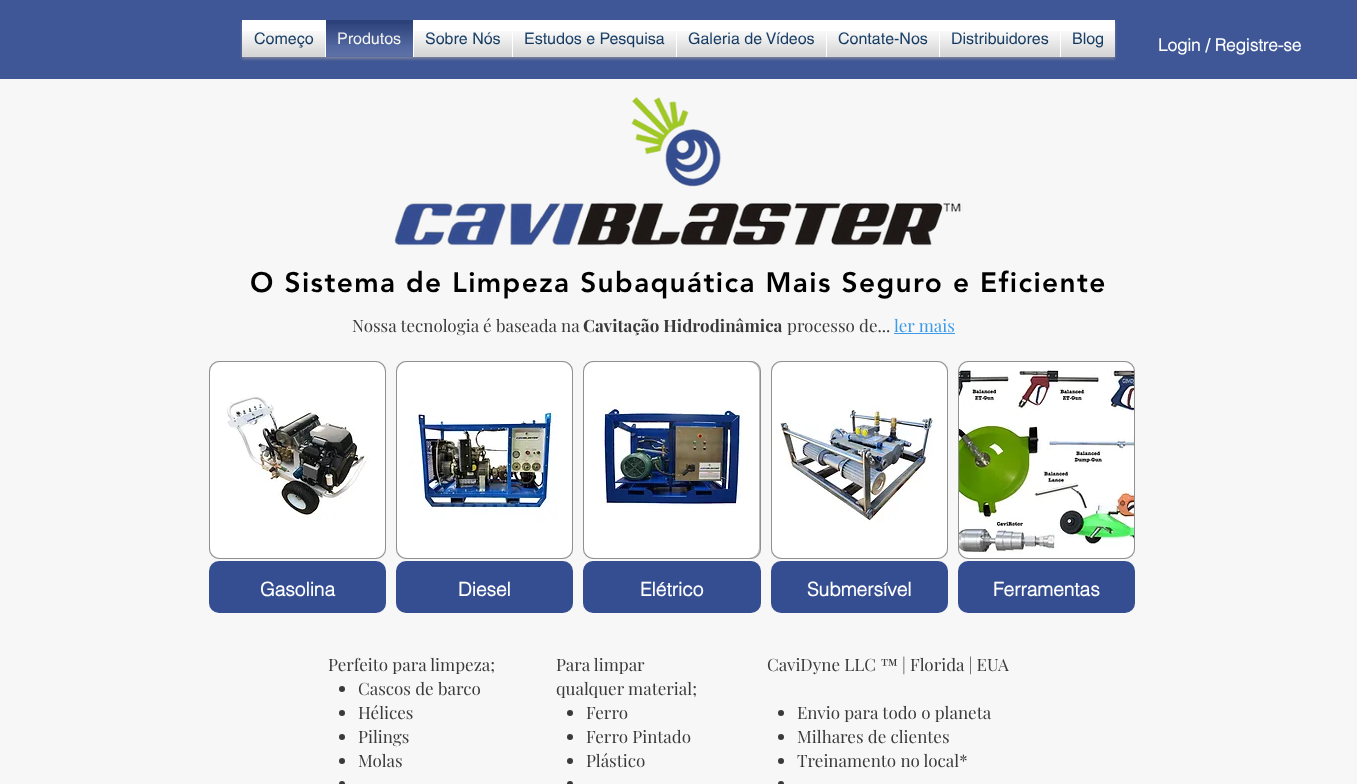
(async () => {
  const canvas = document.querySelector("canvas");
  canvas.width = 1357;
  canvas.height = 784;
  const ctx = canvas.getContext("2d");
  ctx.miterLimit = 4;
  ctx.fontKerning = "normal";
  async function loadImage(src) {
    const img = new Image();
    img.src = src;
    await img.decode();
    return img;
  }

  ctx.fillStyle = "#f7f7f7";
  ctx.fillRect(0, 0, 1357, 784);
  ctx.fillStyle = "#3f5797";
  ctx.fillRect(0, 0, 1357, 79);
  ctx.fillStyle = "rgba(162, 158, 158, 0.6)";
  ctx.filter = "blur(1.5px)";
  ctx.beginPath();
  ctx.rect(242, 22, 873, 37);
  ctx.fill();
  ctx.filter = "none";
  for (const [x, y, w, h, color] of [
    [242, 20, 84, 37, "#ffffff"],
    [326, 20, 87, 37, "#354e91"],
    [413, 20, 702, 37, "#ffffff"],
  ]) {
    ctx.fillStyle = color;
    ctx.fillRect(x, y, w, h);
  }
  ctx.drawImage(await loadImage("img/17.png"), 394, 97, 569, 149);
  ctx.fillStyle = "#3d9be9";
  ctx.fillRect(894, 333, 61, 1);
  ctx.fillStyle = "#bbbbbb";
  ctx.beginPath();
  ctx.roundRect(209, 361, 177, 198, 10);
  ctx.fill();
  ctx.beginPath();
  ctx.roundRect(209.5, 361.5, 176, 197, 9.5);
  ctx.strokeStyle = "rgba(47, 46, 46, 0.3)";
  ctx.stroke();
  ctx.drawImage(await loadImage("img/18.png"), 210, 362, 175, 196);
  ctx.fillStyle = "#354e91";
  ctx.beginPath();
  ctx.roundRect(209, 561, 177, 52, 10);
  ctx.fill();
  ctx.fillStyle = "#bbbbbb";
  ctx.beginPath();
  ctx.roundRect(396, 361, 177, 198, 10);
  ctx.fill();
  ctx.beginPath();
  ctx.roundRect(396.5, 361.5, 176, 197, 9.5);
  ctx.stroke();
  ctx.drawImage(await loadImage("img/19.png"), 397, 362, 175, 196);
  ctx.fillStyle = "#354e91";
  ctx.beginPath();
  ctx.roundRect(396, 561, 177, 52, 10);
  ctx.fill();
  ctx.fillStyle = "#bbbbbb";
  ctx.beginPath();
  ctx.roundRect(583, 361, 178, 198, 10);
  ctx.fill();
  ctx.beginPath();
  ctx.roundRect(583.5, 361.5, 177, 197, 9.5);
  ctx.stroke();
  ctx.drawImage(await loadImage("img/20.png"), 584, 362, 175, 196);
  ctx.fillStyle = "#354e91";
  ctx.beginPath();
  ctx.roundRect(583, 561, 178, 52, 10);
  ctx.fill();
  ctx.fillStyle = "#bbbbbb";
  ctx.beginPath();
  ctx.roundRect(771, 361, 177, 198, 10);
  ctx.fill();
  ctx.beginPath();
  ctx.roundRect(771.5, 361.5, 176, 197, 9.5);
  ctx.stroke();
  ctx.drawImage(await loadImage("img/21.png"), 772, 362, 175, 196);
  ctx.fillStyle = "#354e91";
  ctx.beginPath();
  ctx.roundRect(771, 561, 177, 52, 10);
  ctx.fill();
  ctx.fillStyle = "#bbbbbb";
  ctx.beginPath();
  ctx.roundRect(958, 361, 177, 198, 10);
  ctx.fill();
  ctx.beginPath();
  ctx.roundRect(958.5, 361.5, 176, 197, 9.5);
  ctx.stroke();
  ctx.drawImage(await loadImage("img/22.png"), 959, 362, 175, 196);
  ctx.fillStyle = "#354e91";
  ctx.beginPath();
  ctx.roundRect(958, 561, 177, 52, 10);
  ctx.fill();
  ctx.fillStyle = "#3b3a3a";
  ctx.beginPath();
  ctx.arc(342, 689, 3, 0, Math.PI * 2);
  ctx.fill();
  ctx.beginPath();
  ctx.arc(342, 713, 3, 0, Math.PI * 2);
  ctx.fill();
  ctx.beginPath();
  ctx.arc(342, 737, 3, 0, Math.PI * 2);
  ctx.fill();
  ctx.beginPath();
  ctx.arc(342, 761, 3, 0, Math.PI * 2);
  ctx.fill();
  ctx.beginPath();
  ctx.arc(342, 784, 3, 0, Math.PI * 2);
  ctx.fill();
  ctx.beginPath();
  ctx.arc(570, 713, 3, 0, Math.PI * 2);
  ctx.fill();
  ctx.beginPath();
  ctx.arc(570, 737, 3, 0, Math.PI * 2);
  ctx.fill();
  ctx.beginPath();
  ctx.arc(570, 761, 3, 0, Math.PI * 2);
  ctx.fill();
  ctx.beginPath();
  ctx.arc(570, 784, 3, 0, Math.PI * 2);
  ctx.fill();
  ctx.beginPath();
  ctx.arc(781, 713, 3, 0, Math.PI * 2);
  ctx.fill();
  ctx.beginPath();
  ctx.arc(781, 737, 3, 0, Math.PI * 2);
  ctx.fill();
  ctx.beginPath();
  ctx.arc(781, 761, 3, 0, Math.PI * 2);
  ctx.fill();
  ctx.beginPath();
  ctx.arc(781, 784, 3, 0, Math.PI * 2);
  ctx.fill();
  ctx.font = "16px helvetica";
  ctx.fillStyle = "#002e5d";
  ctx.fillText("Começo", 254, 44);
  ctx.drawImage(await loadImage("img/1.png"), 254, 32, 59, 16);
  ctx.drawImage(await loadImage("img/2.png"), 242, 31, 83, 26);
  ctx.fillStyle = "#ffffff";
  ctx.fillText("Produtos", 337, 44);
  ctx.drawImage(await loadImage("img/3.png"), 326, 20, 87, 25);
  ctx.drawImage(await loadImage("img/4.png"), 326, 24, 87, 33);
  ctx.fillStyle = "#002e5d";
  ctx.fillText("Sobre Nós", 425, 44);
  ctx.drawImage(await loadImage("img/5.png"), 426, 32, 74, 13);
  ctx.drawImage(await loadImage("img/6.png"), 414, 31, 98, 26);
  ctx.fillText("Estudos e Pesquisa", 524, 44);
  ctx.drawImage(await loadImage("img/7.png"), 525, 32, 140, 15);
  ctx.drawImage(await loadImage("img/8.png"), 513, 31, 163, 26);
  ctx.fillText("Galeria de Vídeos", 688, 44);
  ctx.drawImage(await loadImage("img/9.png"), 689, 32, 125, 13);
  ctx.drawImage(await loadImage("img/10.png"), 677, 31, 149, 26);
  ctx.fillText("Contate-Nos", 838, 44);
  ctx.drawImage(await loadImage("img/11.png"), 838, 32, 90, 13);
  ctx.drawImage(await loadImage("img/12.png"), 827, 31, 112, 26);
  ctx.fillText("Distribuidores", 951, 44);
  ctx.drawImage(await loadImage("img/13.png"), 952, 32, 97, 12);
  ctx.drawImage(await loadImage("img/14.png"), 940, 31, 120, 26);
  ctx.fillText("Blog", 1072, 44);
  ctx.drawImage(await loadImage("img/15.png"), 1073, 32, 30, 16);
  ctx.drawImage(await loadImage("img/16.png"), 1061, 31, 54, 26);
  ctx.font = "bold 17px helvetica";
  ctx.fillStyle = "#ffffff";
  ctx.fillText("Login / Registre-se", 1158, 51);
  ctx.letterSpacing = "1.4px";
  ctx.font = "900 28px 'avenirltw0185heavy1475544'";
  ctx.fillStyle = "#000000";
  ctx.fillText("O Sistema de Limpeza Subaquática Mais Seguro e Eficiente", 250, 292);
  ctx.letterSpacing = "0px";
  ctx.font = "17px Playfair Display";
  ctx.fillStyle = "#3b3a3a";
  ctx.fillText("Nossa tecnologia é baseada na", 352, 332);
  ctx.font = "bold 17px Playfair Display";
  ctx.fillText("Cavitação Hidrodinâmica", 583, 332);
  ctx.font = "17px Playfair Display";
  ctx.fillText("processo de...", 787, 332);
  ctx.fillStyle = "#3d9be9";
  ctx.fillText("ler mais", 894, 332);
  ctx.font = "bold 19px helvetica";
  ctx.fillStyle = "#ffffff";
  for (const [text, x, y] of [
    ["Gasolina", 260, 596],
    ["Diesel", 458, 596],
    ["Elétrico", 640, 596],
    ["Submersível", 807, 596],
    ["Ferramentas", 993, 596],
  ]) {
    ctx.fillText(text, x, y);
  }
  ctx.font = "17px Playfair Display";
  ctx.fillStyle = "#3b3a3a";
  for (const [text, x, y] of [
    ["Perfeito para limpeza;", 328, 671],
    ["Cascos de barco", 358, 695],
    ["Hélices", 358, 719],
    ["Pilings", 358, 743],
    ["Molas", 358, 767],
    ["Para limpar", 556, 671],
    ["qualquer material;", 556, 695],
    ["Ferro", 586, 719],
    ["Ferro Pintado", 586, 743],
    ["Plástico", 586, 767],
    ["CaviDyne LLC ™ | Florida | EUA", 767, 671],
    ["Envio para todo o planeta", 797, 719],
    ["Milhares de clientes", 797, 743],
    ["Treinamento no local*", 797, 767],
  ]) {
    ctx.fillText(text, x, y);
  }
})();
